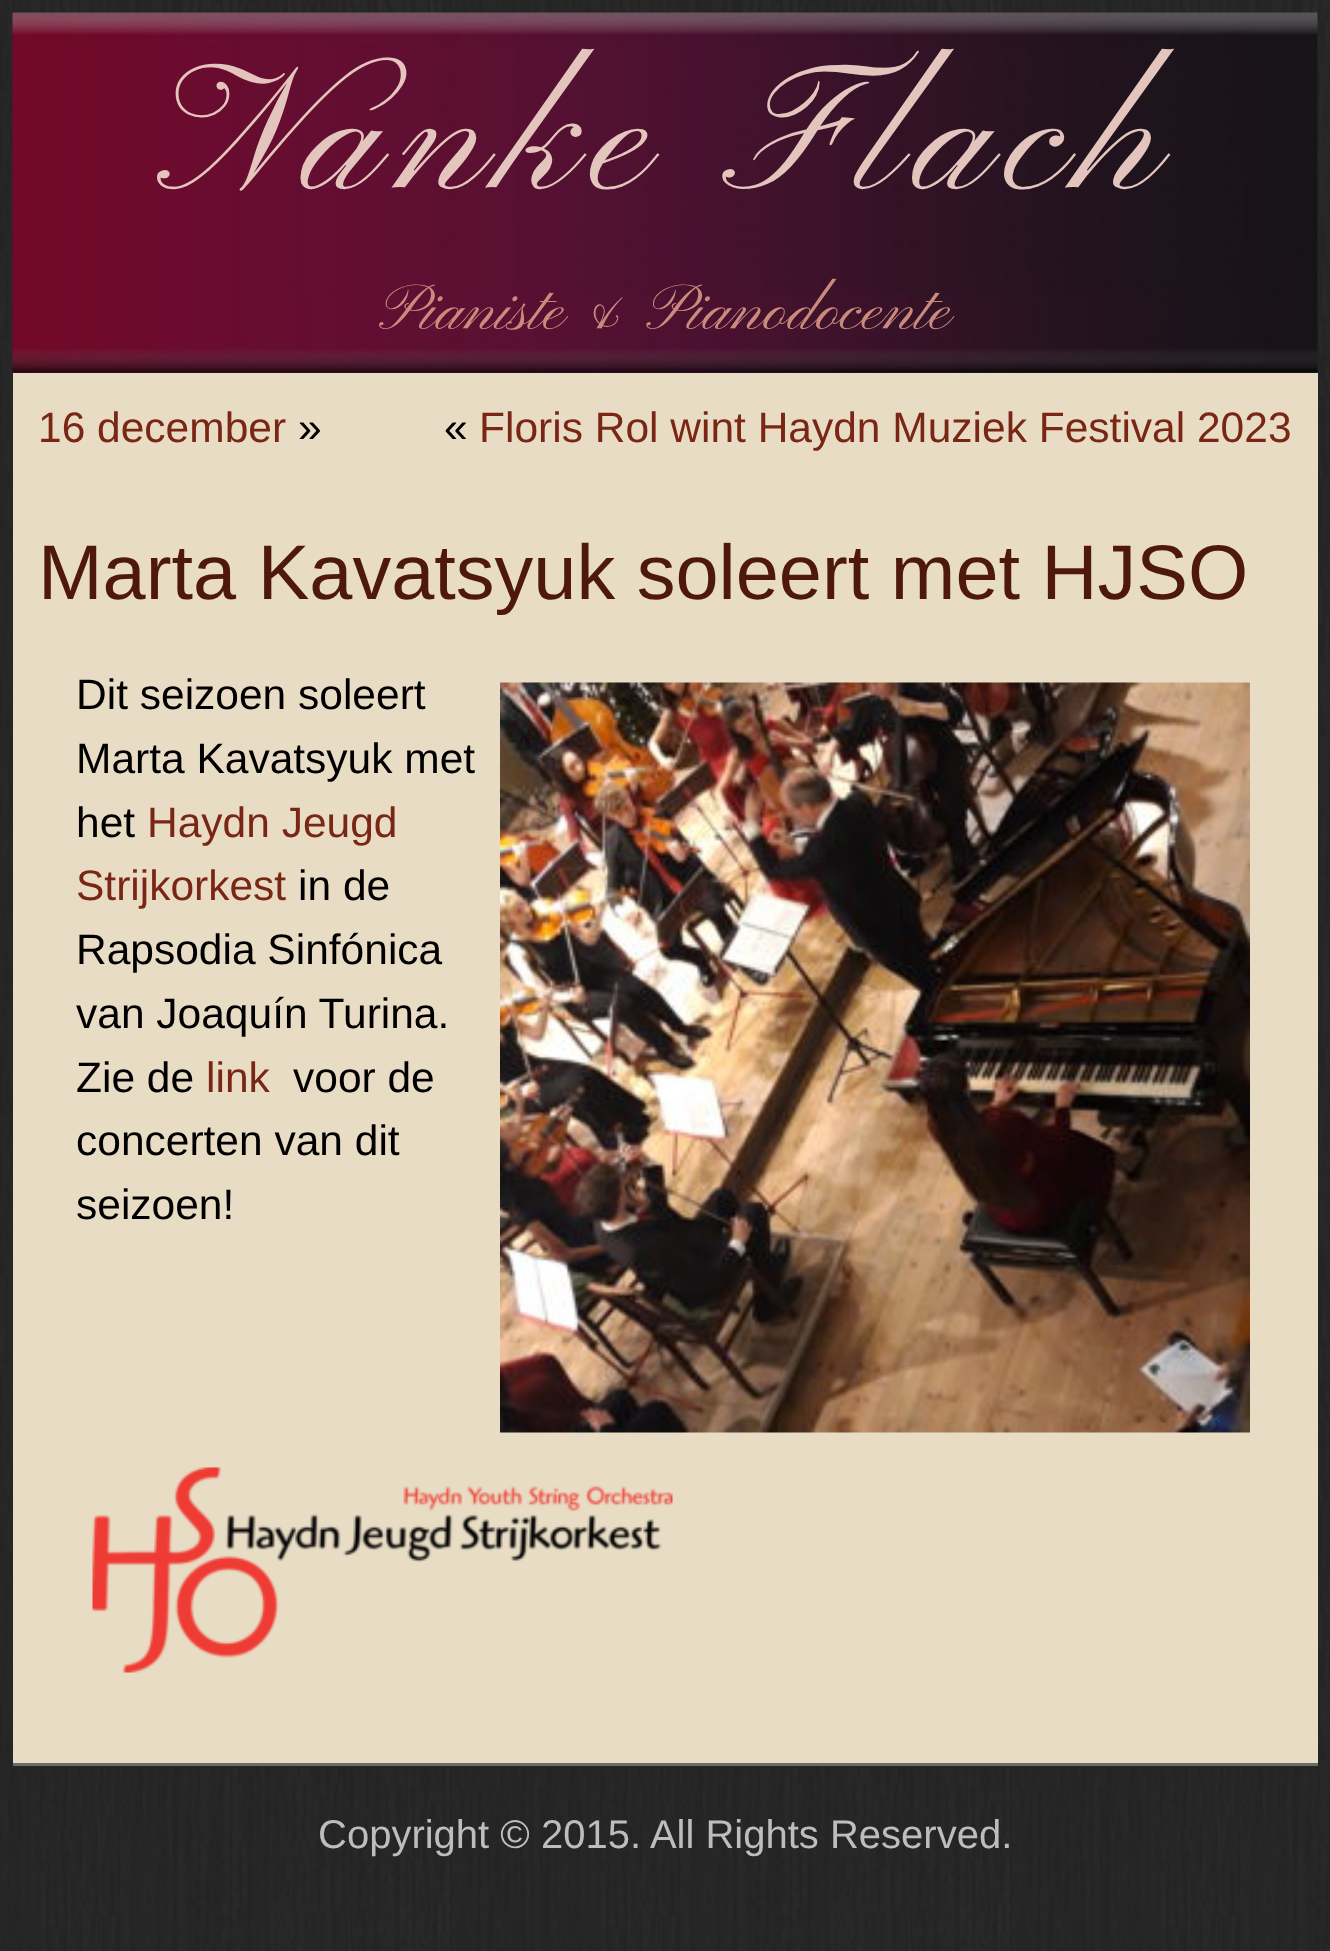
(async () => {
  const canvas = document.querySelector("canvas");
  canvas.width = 1330;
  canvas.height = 1951;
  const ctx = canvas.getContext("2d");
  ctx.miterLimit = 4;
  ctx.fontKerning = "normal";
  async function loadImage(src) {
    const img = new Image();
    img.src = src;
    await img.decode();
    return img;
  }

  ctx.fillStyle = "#292929";
  ctx.fillRect(0, 0, 1330, 1951);
  ctx.drawImage(await loadImage("img/1.png"), 0, 0, 1330, 1951);
  ctx.drawImage(await loadImage("img/2.png"), 12, 12, 1306, 361);
  ctx.fillStyle = "#e8dcc4";
  ctx.fillRect(13, 373, 1305, 1390);
  ctx.drawImage(await loadImage("img/3.png"), 500, 682, 750, 751);
  ctx.drawImage(await loadImage("img/4.png"), 92, 1467, 581, 206);
  ctx.fillStyle = "#6b6b6b";
  ctx.fillRect(13, 1763, 1305, 3);
  ctx.letterSpacing = "15px";
  ctx.font = "180px Pinyon Script";
  ctx.fillStyle = "#e4c5be";
  ctx.fillText("Nanke Flach", 157, 189);
  ctx.letterSpacing = "0px";
  ctx.font = "65px Pinyon Script";
  ctx.fillStyle = "#ca8b7d";
  ctx.fillText("Pianiste & Pianodocente", 379, 329);
  ctx.font = "42.5px Liberation Sans";
  ctx.fillStyle = "#792615";
  ctx.fillText("16 december", 38, 442);
  ctx.fillStyle = "#000000";
  ctx.fillText("»", 298, 442);
  ctx.fillText("«", 444, 442);
  ctx.fillStyle = "#792615";
  ctx.fillText("Floris Rol wint Haydn Muziek Festival 2023", 479, 442);
  ctx.font = "77.5px Liberation Sans";
  ctx.fillStyle = "#4e180e";
  ctx.fillText("Marta Kavatsyuk soleert met HJSO", 38, 599);
  ctx.font = "42.5px Liberation Sans";
  ctx.fillStyle = "#000000";
  for (const [text, x, y] of [
    ["Dit seizoen soleert", 76, 709],
    ["Marta Kavatsyuk met", 76, 773],
    ["het", 76, 837],
  ]) {
    ctx.fillText(text, x, y);
  }
  ctx.fillStyle = "#792615";
  ctx.fillText("Haydn Jeugd", 147, 837);
  ctx.fillText("Strijkorkest", 76, 900);
  ctx.fillStyle = "#000000";
  for (const [text, x, y] of [
    ["in de", 298, 900],
    ["Rapsodia Sinfónica", 76, 964],
    ["van Joaquín Turina.", 76, 1028],
    ["Zie de", 76, 1092],
  ]) {
    ctx.fillText(text, x, y);
  }
  ctx.fillStyle = "#792615";
  ctx.fillText("link", 206, 1092);
  ctx.fillStyle = "#000000";
  for (const [text, x, y] of [
    ["voor de", 293, 1092],
    ["concerten van dit", 76, 1155],
    ["seizoen!", 76, 1219],
  ]) {
    ctx.fillText(text, x, y);
  }
  ctx.font = "40px Liberation Sans";
  ctx.fillStyle = "#bdbdbd";
  ctx.fillText("Copyright © 2015. All Rights Reserved.", 318, 1848);
})();
